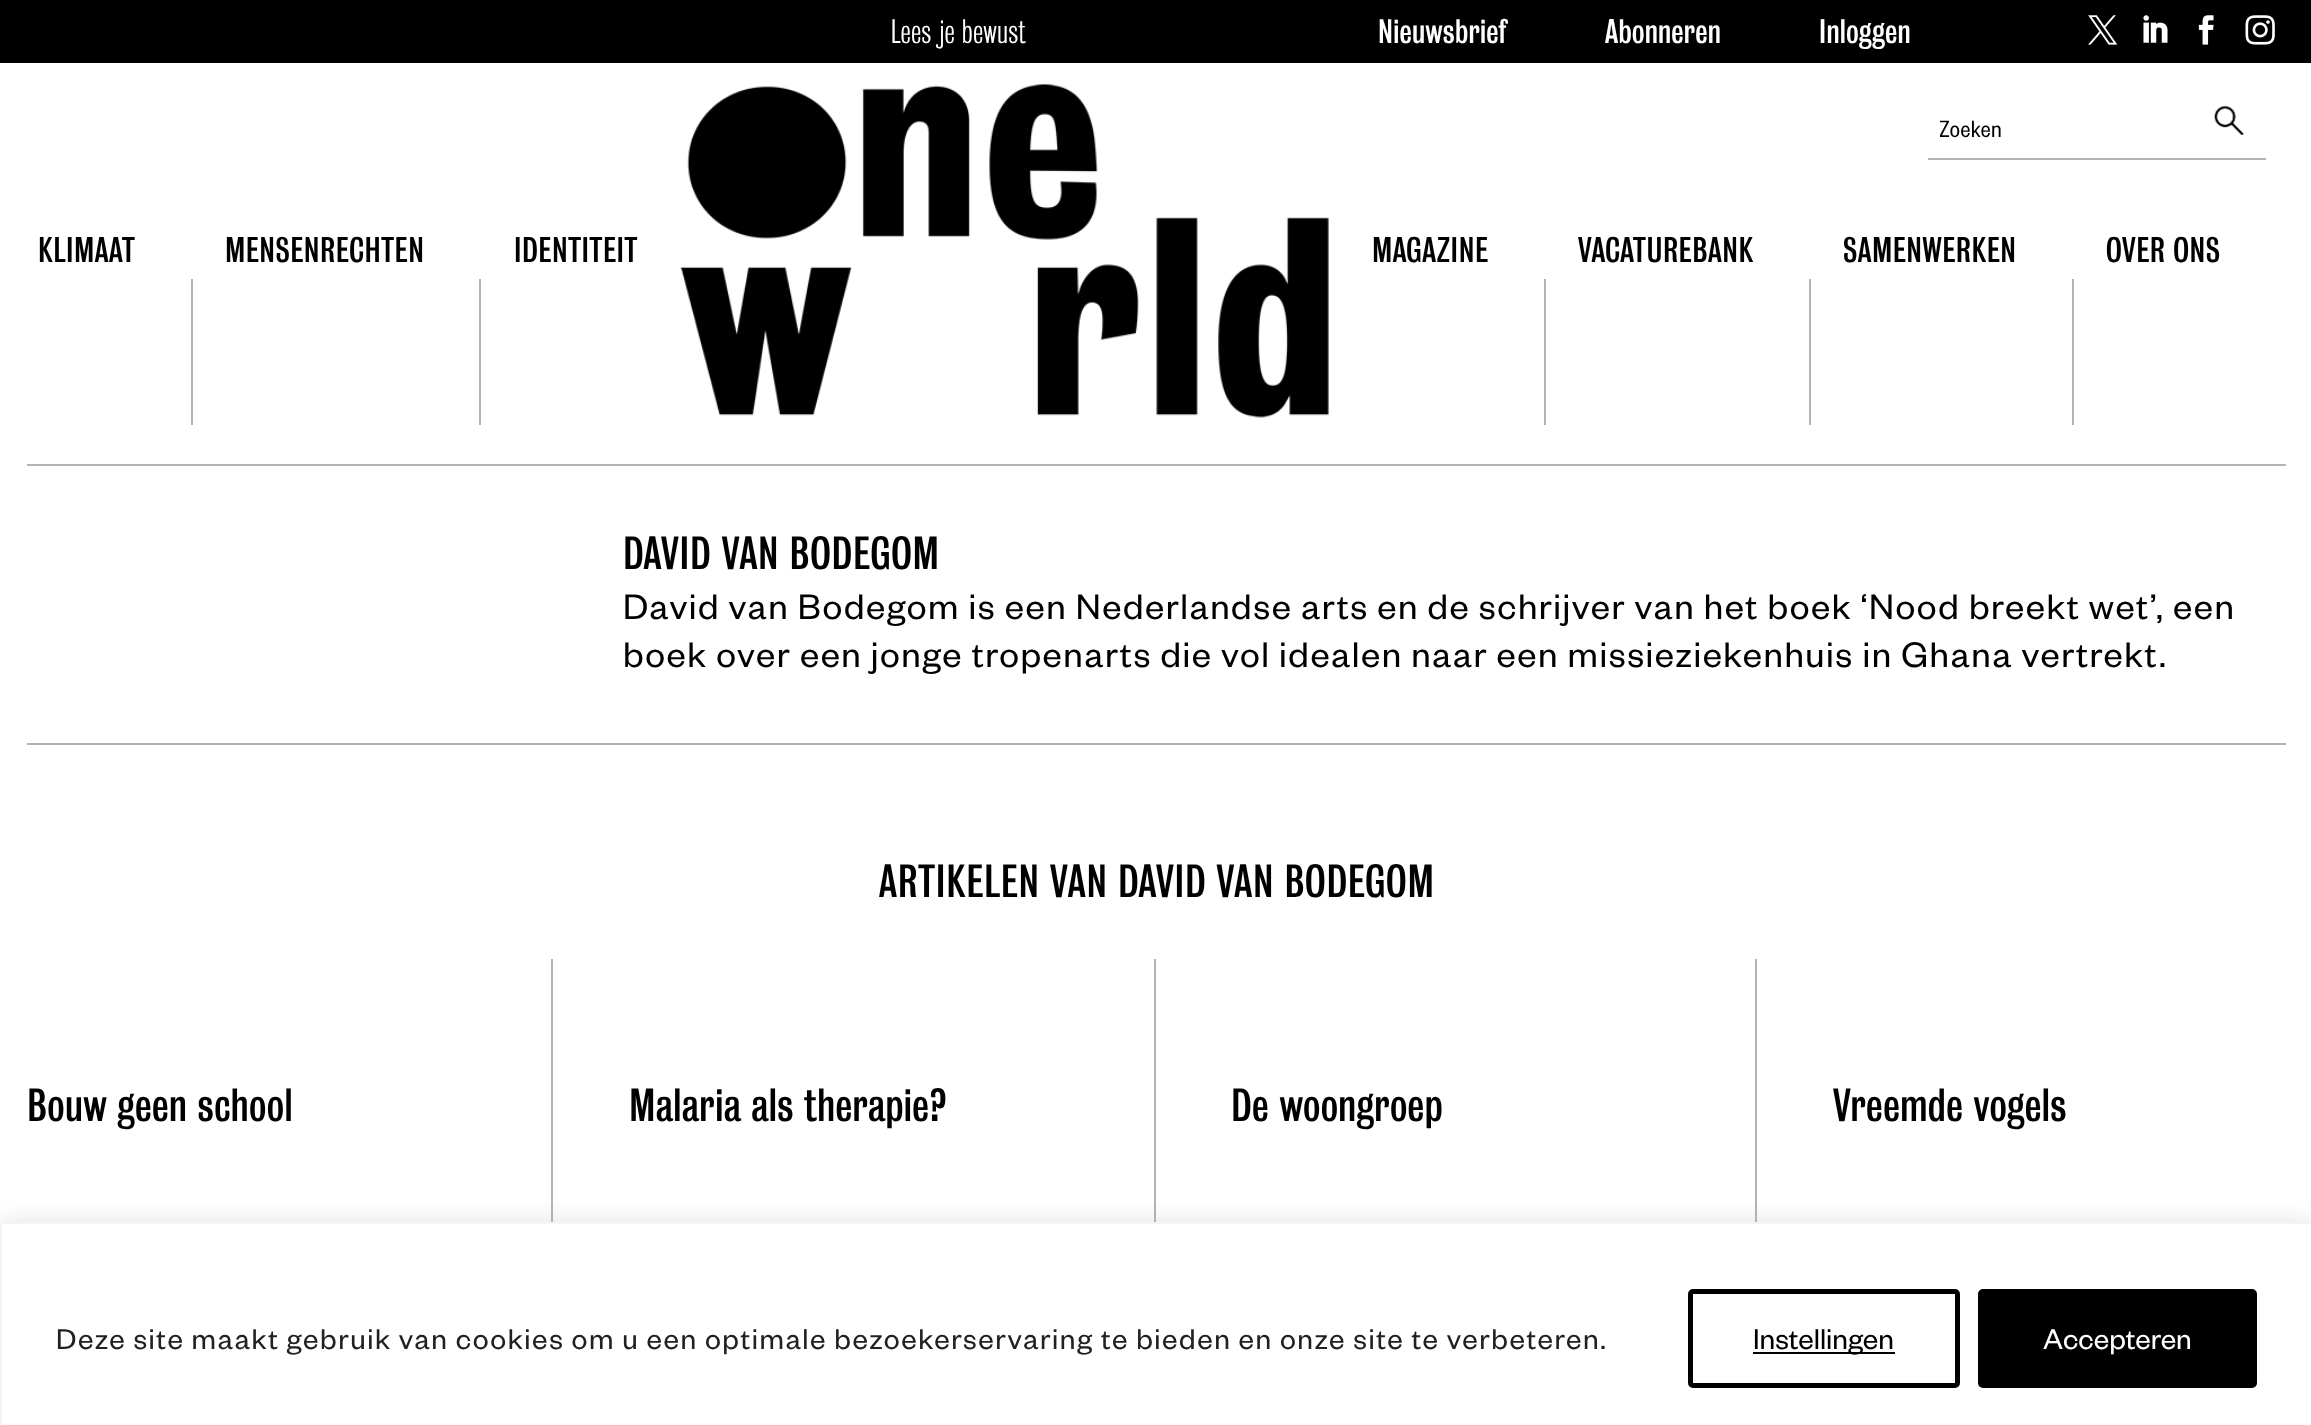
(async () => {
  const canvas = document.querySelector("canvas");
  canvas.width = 2311;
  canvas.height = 1425;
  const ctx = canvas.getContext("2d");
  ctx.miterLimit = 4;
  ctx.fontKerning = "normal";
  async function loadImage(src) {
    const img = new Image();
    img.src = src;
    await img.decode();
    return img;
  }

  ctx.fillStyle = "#ffffff";
  ctx.fillRect(0, 0, 2311, 1425);
  ctx.fillStyle = "#000000";
  ctx.fillRect(0, 0, 2311, 63);
  ctx.drawImage(await loadImage("img/1.png"), 2088, 15, 30, 30);
  ctx.drawImage(await loadImage("img/2.png"), 2143, 15, 25, 28);
  ctx.drawImage(await loadImage("img/3.png"), 2198, 15, 16, 30);
  ctx.drawImage(await loadImage("img/4.png"), 2245, 15, 30, 30);
  ctx.fillStyle = "#b3b3b3";
  ctx.fillRect(27, 464, 2259, 2);
  ctx.fillRect(1928, 158, 338, 2);
  ctx.drawImage(await loadImage("img/5.png"), 2214, 105, 30, 30);
  ctx.fillRect(191, 279, 2, 146);
  ctx.fillRect(479, 279, 2, 146);
  ctx.drawImage(await loadImage("img/6.png"), 680, 84, 649, 334);
  for (const [x, y, w, h, color] of [
    [1544, 279, 2, 146, "#b3b3b3"],
    [1809, 279, 2, 146, "#b3b3b3"],
    [2072, 279, 2, 146, "#b3b3b3"],
    [27, 743, 2259, 2, "#b3b3b3"],
    [551, 959, 2, 263, "#b3b3b3"],
    [1154, 959, 2, 263, "#b3b3b3"],
    [1755, 959, 2, 263, "#b3b3b3"],
  ]) {
    ctx.fillStyle = color;
    ctx.fillRect(x, y, w, h);
  }
  ctx.fillStyle = "rgba(172, 171, 171, 0.3)";
  ctx.filter = "blur(11px)";
  ctx.beginPath();
  ctx.rect(0, 1220, 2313, 204);
  ctx.fill();
  ctx.filter = "none";
  ctx.fillStyle = "#ffffff";
  ctx.beginPath();
  ctx.rect(1, 1223, 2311, 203);
  ctx.fill();
  ctx.strokeStyle = "#f4f4f4";
  ctx.lineWidth = 2;
  ctx.stroke();
  ctx.beginPath();
  ctx.roundRect(1690.5, 1291.5, 267, 94, 2.5);
  ctx.strokeStyle = "#000000";
  ctx.lineWidth = 5;
  ctx.stroke();
  ctx.fillStyle = "#000000";
  ctx.fillRect(1753, 1352, 142, 2);
  ctx.beginPath();
  ctx.roundRect(1980.5, 1291.5, 274, 94, 2.5);
  ctx.fill();
  ctx.stroke();
  ctx.letterSpacing = "0.6px";
  ctx.font = "300 31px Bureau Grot";
  ctx.fillStyle = "#ffffff";
  ctx.fillText("Lees je bewust", 891, 43);
  ctx.font = "31px Bureau Grot";
  for (const [text, x, y] of [
    ["Nieuwsbrief", 1378, 43],
    ["Abonneren", 1605, 43],
    ["Inloggen", 1819, 43],
  ]) {
    ctx.fillText(text, x, y);
  }
  ctx.save();
  ctx.beginPath();
  ctx.rect(1940, 113, 315, 31);
  ctx.clip();
  ctx.letterSpacing = "0.5px";
  ctx.font = "26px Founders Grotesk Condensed";
  ctx.fillStyle = "#000000";
  ctx.fillText("Zoeken", 1939, 137);
  ctx.restore();
  ctx.font = "32.5px Bureau Grot";
  ctx.fillStyle = "#000000";
  for (const [text, x, y] of [
    ["KLIMAAT", 38, 262],
    ["MENSENRECHTEN", 225, 262],
    ["IDENTITEIT", 514, 262],
    ["MAGAZINE", 1372, 262],
    ["VACATUREBANK", 1578, 262],
    ["SAMENWERKEN", 1843, 262],
    ["OVER ONS", 2106, 262],
  ]) {
    ctx.fillText(text, x, y);
  }
  ctx.letterSpacing = "0.85px";
  ctx.font = "42.4px Bureau Grot";
  ctx.fillText("DAVID VAN BODEGOM", 623, 569);
  ctx.letterSpacing = "1.56px";
  ctx.font = "39.1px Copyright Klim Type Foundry";
  ctx.fillText("David van Bodegom is een Nederlandse arts en de schrijver van het boek ‘Nood breekt wet’, een", 623, 619);
  ctx.fillText("boek over een jonge tropenarts die vol idealen naar een missieziekenhuis in Ghana vertrekt.", 623, 667);
  ctx.letterSpacing = "0.85px";
  ctx.font = "42.4px Bureau Grot";
  for (const [text, x, y] of [
    ["ARTIKELEN VAN DAVID VAN BODEGOM", 879, 897],
    ["Bouw geen school", 27, 1121],
    ["Malaria als therapie?", 629, 1121],
    ["De woongroep", 1231, 1121],
    ["Vreemde vogels", 1833, 1121],
  ]) {
    ctx.fillText(text, x, y);
  }
  ctx.letterSpacing = "1.56px";
  ctx.font = "31.5px Copyright Klim Type Foundry";
  ctx.fillStyle = "#212121";
  ctx.fillText("Deze site maakt gebruik van cookies om u een optimale bezoekerservaring te bieden en onze site te verbeteren.", 56, 1349);
  ctx.letterSpacing = "0px";
  ctx.fillStyle = "#000000";
  ctx.fillText("Instellingen", 1753, 1349);
  ctx.fillStyle = "#ffffff";
  ctx.fillText("Accepteren", 2043, 1349);
})();
